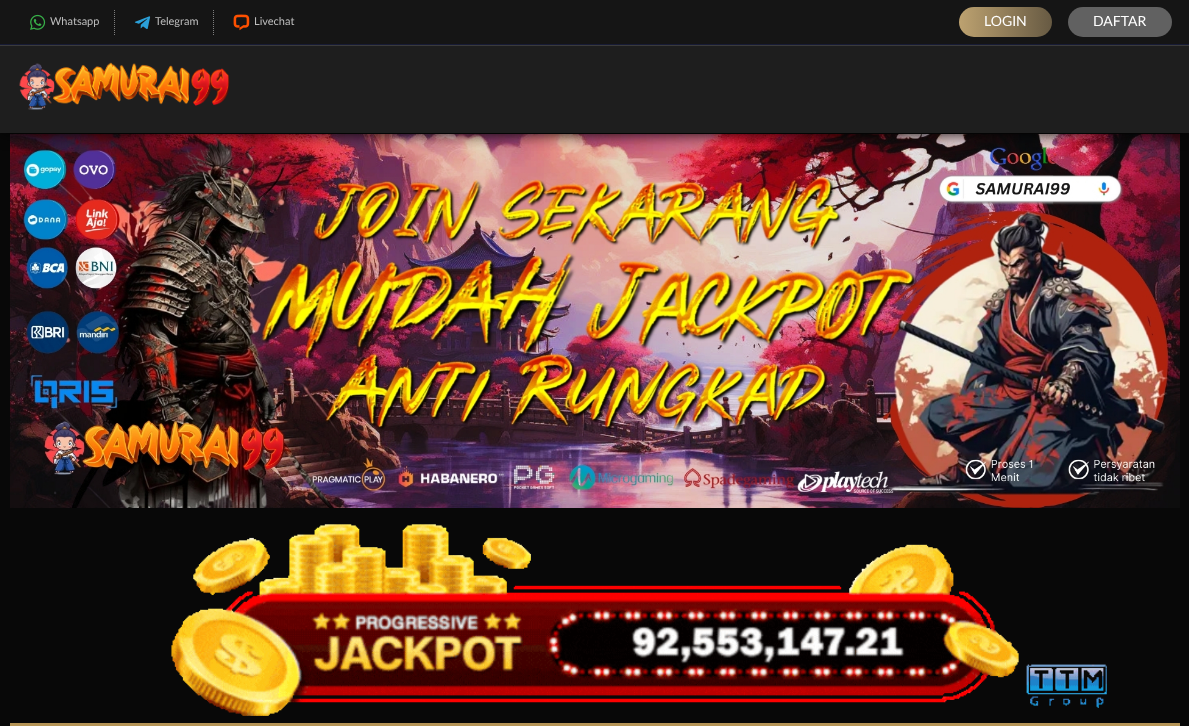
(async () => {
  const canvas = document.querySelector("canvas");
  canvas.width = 1189;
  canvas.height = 726;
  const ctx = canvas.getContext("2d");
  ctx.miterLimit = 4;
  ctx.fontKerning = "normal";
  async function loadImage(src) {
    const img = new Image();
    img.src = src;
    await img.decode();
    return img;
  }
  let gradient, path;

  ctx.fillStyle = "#080808";
  ctx.fillRect(0, 0, 1189, 726);
  ctx.drawImage(await loadImage("img/5.png"), 10, 134, 1170, 374);
  ctx.fillStyle = "#000000";
  ctx.filter = "blur(7.5px)";
  ctx.beginPath();
  ctx.rect(0, 0, 1189, 133);
  ctx.fill();
  ctx.filter = "none";
  ctx.fillStyle = "#151515";
  ctx.fillRect(0, 0, 1189, 44);
  ctx.fillStyle = "#171b34";
  ctx.fillRect(0, 44, 1189, 1);
  ctx.drawImage(await loadImage("img/1.png"), 30, 14, 16, 16);
  path = new Path2D("M114.5 10V35");
  ctx.strokeStyle = "#7d7d7d";
  ctx.setLineDash([1, 1]);
  ctx.stroke(path);
  ctx.drawImage(await loadImage("img/2.png"), 134, 16, 17, 13);
  path = new Path2D("M213.5 10V35");
  ctx.stroke(path);
  ctx.drawImage(await loadImage("img/3.png"), 233, 14, 17, 17);
  gradient = ctx.createLinearGradient(959, 22, 1052, 22);
  gradient.addColorStop(0, "#bda270");
  gradient.addColorStop(1, "#675a43");
  ctx.fillStyle = gradient;
  ctx.beginPath();
  ctx.roundRect(959, 7, 93, 30, 15);
  ctx.fill();
  ctx.fillStyle = "#616161";
  ctx.beginPath();
  ctx.roundRect(1068, 7, 104, 30, 15);
  ctx.fill();
  ctx.fillStyle = "#1e1e1e";
  ctx.fillRect(0, 46, 1189, 87);
  ctx.fillStyle = "#3b3b3b";
  ctx.fillRect(0, 45, 1189, 1);
  ctx.drawImage(await loadImage("img/4.png"), 19, 62, 211, 48);
  ctx.drawImage(await loadImage("img/6.png"), 171, 524, 936, 192);
  ctx.fillStyle = "#b59456";
  ctx.fillRect(10, 723, 1170, 3);
  ctx.font = "11px Lato";
  ctx.fillStyle = "#bebebe";
  for (const [text, x, y] of [
    ["Whatsapp", 50, 25],
    ["Telegram", 155, 25],
    ["Livechat", 254, 25],
  ]) {
    ctx.fillText(text, x, y);
  }
  ctx.font = "14px Lato";
  ctx.fillStyle = "#ffffff";
  ctx.fillText("LOGIN", 984, 26);
  ctx.fillText("DAFTAR", 1093, 26);
})();
